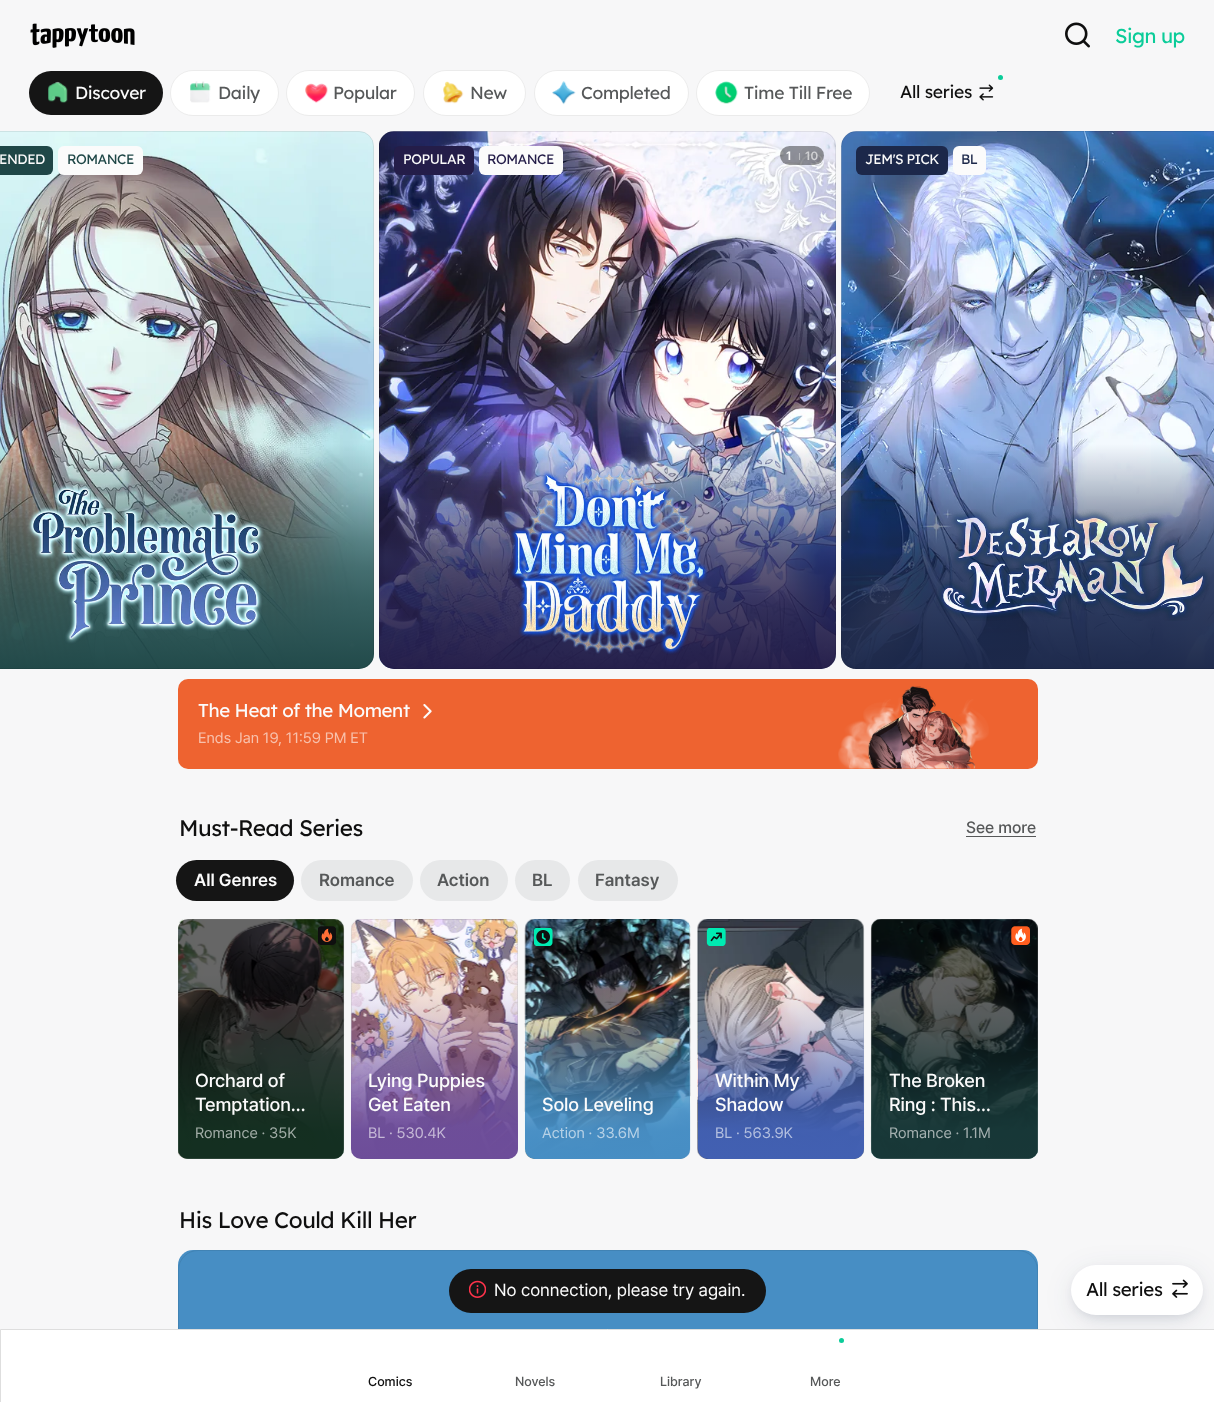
(async () => {
  const canvas = document.querySelector("canvas");
  canvas.width = 1214;
  canvas.height = 1402;
  const ctx = canvas.getContext("2d");
  ctx.miterLimit = 4;
  ctx.fontKerning = "normal";
  async function loadImage(src) {
    const img = new Image();
    img.src = src;
    await img.decode();
    return img;
  }
  let gradient, path;

  ctx.fillStyle = "#f7f7f8";
  ctx.fillRect(0, 0, 1214, 1402);
  ctx.drawImage(await loadImage("img/1.png"), 30, 23, 105, 25);
  ctx.drawImage(await loadImage("img/2.png"), 1065, 22, 25, 26);
  ctx.fillStyle = "#151515";
  ctx.beginPath();
  ctx.roundRect(29, 71, 134, 44, 22);
  ctx.fill();
  ctx.drawImage(await loadImage("img/3.png"), 48, 81, 20, 22);
  ctx.fillStyle = "#ffffff";
  ctx.beginPath();
  ctx.roundRect(170, 70, 109, 46, 23);
  ctx.fill();
  ctx.beginPath();
  ctx.roundRect(170.5, 70.5, 108, 45, 22.5);
  ctx.strokeStyle = "rgba(0, 0, 0, 0.08)";
  ctx.stroke();
  ctx.drawImage(await loadImage("img/4.png"), 190, 81, 21, 22);
  ctx.beginPath();
  ctx.roundRect(286, 70, 129, 46, 23);
  ctx.fill();
  ctx.beginPath();
  ctx.roundRect(286.5, 70.5, 128, 45, 22.5);
  ctx.stroke();
  ctx.drawImage(await loadImage("img/5.png"), 305, 83, 23, 20);
  ctx.beginPath();
  ctx.roundRect(423, 70, 103, 46, 23);
  ctx.fill();
  ctx.beginPath();
  ctx.roundRect(423.5, 70.5, 102, 45, 22.5);
  ctx.stroke();
  ctx.drawImage(await loadImage("img/6.png"), 443, 81, 21, 23);
  ctx.beginPath();
  ctx.roundRect(534, 70, 155, 46, 23);
  ctx.fill();
  ctx.beginPath();
  ctx.roundRect(534.5, 70.5, 154, 45, 22.5);
  ctx.stroke();
  ctx.drawImage(await loadImage("img/7.png"), 552, 81, 24, 24);
  ctx.beginPath();
  ctx.roundRect(696, 70, 174, 46, 23);
  ctx.fill();
  ctx.beginPath();
  ctx.roundRect(696.5, 70.5, 173, 45, 22.5);
  ctx.stroke();
  ctx.drawImage(await loadImage("img/8.png"), 715, 81, 23, 23);
  ctx.fillStyle = "#0bcc99";
  ctx.beginPath();
  ctx.arc(1000.5, 77.5, 2.5, 0, Math.PI * 2);
  ctx.fill();
  ctx.drawImage(await loadImage("img/9.png"), 979, 84, 15, 17);
  ctx.fillStyle = "#f5f5f5";
  ctx.beginPath();
  ctx.roundRect(379, 131, 457, 538, 15);
  ctx.fill();
  ctx.drawImage(await loadImage("img/12.png"), 379, 131, 457, 538);
  ctx.fillStyle = "#241d49";
  ctx.beginPath();
  ctx.roundRect(394, 146, 80, 29, 6);
  ctx.fill();
  ctx.fillStyle = "#fbfbfb";
  ctx.beginPath();
  ctx.roundRect(479, 146, 84, 29, 6);
  ctx.fill();
  gradient = ctx.createLinearGradient(608, 444, 608, 669);
  gradient.addColorStop(0, "rgba(36, 29, 73, 0)");
  gradient.addColorStop(0.21, "rgba(36, 29, 73, 0.28)");
  gradient.addColorStop(0.43, "rgba(36, 29, 73, 0.61)");
  gradient.addColorStop(0.55, "rgba(36, 29, 73, 0.74)");
  gradient.addColorStop(0.69, "rgba(36, 29, 73, 0.84)");
  gradient.addColorStop(1, "rgba(36, 29, 73, 0.98)");
  ctx.fillStyle = gradient;
  ctx.beginPath();
  ctx.roundRect(379, 444, 457, 225, [0, 0, 15, 15]);
  ctx.fill();
  ctx.drawImage(await loadImage("img/13.png"), 511, 470, 197, 185);
  ctx.beginPath();
  ctx.roundRect(379.5, 131.5, 456, 537, 14.5);
  ctx.stroke();
  ctx.fillStyle = "rgba(0, 0, 0, 0.4)";
  ctx.beginPath();
  ctx.roundRect(780, 146, 44, 19, 9.5);
  ctx.fill();
  ctx.fillStyle = "rgba(255, 255, 255, 0.4)";
  ctx.fillRect(799, 153, 1, 7);
  ctx.fillStyle = "#f5f5f5";
  ctx.beginPath();
  ctx.roundRect(0, 131, 374, 538, [0, 15, 15, 0]);
  ctx.fill();
  ctx.drawImage(await loadImage("img/10.png"), 0, 131, 374, 538);
  ctx.fillStyle = "#1f4747";
  ctx.beginPath();
  ctx.roundRect(0, 146, 53, 29, [0, 6, 6, 0]);
  ctx.fill();
  ctx.fillStyle = "#fbfbfb";
  ctx.beginPath();
  ctx.roundRect(58, 146, 85, 29, 6);
  ctx.fill();
  gradient = ctx.createLinearGradient(145, 444, 145, 669);
  gradient.addColorStop(0, "rgba(31, 71, 71, 0)");
  gradient.addColorStop(0.21, "rgba(31, 71, 71, 0.28)");
  gradient.addColorStop(0.43, "rgba(31, 71, 71, 0.61)");
  gradient.addColorStop(0.55, "rgba(31, 71, 71, 0.74)");
  gradient.addColorStop(0.69, "rgba(31, 71, 71, 0.84)");
  gradient.addColorStop(1, "rgba(31, 71, 71, 0.98)");
  ctx.fillStyle = gradient;
  ctx.beginPath();
  ctx.roundRect(0, 444, 374, 225, [0, 0, 15, 0]);
  ctx.fill();
  ctx.drawImage(await loadImage("img/11.png"), 27, 484, 237, 160);
  ctx.beginPath();
  ctx.roundRect(-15.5, 131.5, 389, 537, 14.5);
  ctx.stroke();
  ctx.fillStyle = "#f5f5f5";
  path = new Path2D("M856 131H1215V669H856C847.5 669 841 662.5 841 654V146C841 137.5 847.5 131 856 131Z");
  ctx.fill(path);
  ctx.drawImage(await loadImage("img/14.png"), 841, 131, 373, 538);
  ctx.fillStyle = "#1c284a";
  ctx.beginPath();
  ctx.roundRect(856, 146, 92, 29, 6);
  ctx.fill();
  ctx.fillStyle = "#fbfbfb";
  ctx.beginPath();
  ctx.roundRect(953, 146, 33, 29, 6);
  ctx.fill();
  gradient = ctx.createLinearGradient(1070, 444, 1070, 669);
  gradient.addColorStop(0, "rgba(28, 40, 74, 0)");
  gradient.addColorStop(0.21, "rgba(28, 40, 74, 0.28)");
  gradient.addColorStop(0.43, "rgba(28, 40, 74, 0.61)");
  gradient.addColorStop(0.55, "rgba(28, 40, 74, 0.74)");
  gradient.addColorStop(0.69, "rgba(28, 40, 74, 0.84)");
  gradient.addColorStop(1, "rgba(28, 40, 74, 0.98)");
  ctx.fillStyle = gradient;
  path = new Path2D("M841 444H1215V669H856C847.5 669 841 662.5 841 654Z");
  ctx.fill(path);
  ctx.drawImage(await loadImage("img/15.png"), 936, 509, 274, 112);
  ctx.beginPath();
  ctx.roundRect(841.5, 131.5, 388, 537, 14.5);
  ctx.stroke();
  ctx.fillStyle = "#ee6330";
  ctx.beginPath();
  ctx.roundRect(178, 679, 860, 90, 10);
  ctx.fill();
  ctx.drawImage(await loadImage("img/16.png"), 423, 704, 9, 15);
  ctx.drawImage(await loadImage("img/17.png"), 838, 686, 151, 83);
  ctx.fillStyle = "#565859";
  ctx.fillRect(966, 836, 70, 1);
  ctx.fillStyle = "#151515";
  ctx.beginPath();
  ctx.roundRect(176, 860, 118, 41, 20.5);
  ctx.fill();
  ctx.fillStyle = "#e7e8e9";
  ctx.beginPath();
  ctx.roundRect(301, 860, 112, 41, 20.5);
  ctx.fill();
  ctx.beginPath();
  ctx.roundRect(420, 860, 88, 41, 20.5);
  ctx.fill();
  ctx.beginPath();
  ctx.roundRect(515, 860, 55, 41, 20.5);
  ctx.fill();
  ctx.beginPath();
  ctx.roundRect(578, 860, 100, 41, 20.5);
  ctx.fill();
  ctx.fillStyle = "#f5f5f5";
  ctx.beginPath();
  ctx.roundRect(178, 919, 166, 240, 10);
  ctx.fill();
  ctx.drawImage(await loadImage("img/18.png"), 178, 919, 167, 240);
  ctx.beginPath();
  ctx.roundRect(178.5, 919.5, 165, 239, 9.5);
  ctx.stroke();
  gradient = ctx.createLinearGradient(261, 973, 261, 1159);
  gradient.addColorStop(0, "rgba(50, 118, 83, 0)");
  gradient.addColorStop(0.14, "rgba(50, 118, 83, 0.08)");
  gradient.addColorStop(0.29, "rgba(50, 118, 83, 0.24)");
  gradient.addColorStop(0.44, "rgba(50, 118, 83, 0.48)");
  gradient.addColorStop(0.55, "rgba(50, 118, 83, 0.62)");
  gradient.addColorStop(0.66, "rgba(50, 118, 83, 0.77)");
  gradient.addColorStop(0.75, "rgba(50, 118, 83, 0.87)");
  gradient.addColorStop(0.85, "rgba(50, 118, 83, 0.98)");
  gradient.addColorStop(1, "#327653");
  ctx.fillStyle = gradient;
  ctx.beginPath();
  ctx.roundRect(178, 973, 166, 186, [0, 0, 10, 10]);
  ctx.fill();
  ctx.fillStyle = "rgba(0, 0, 0, 0.6)";
  ctx.beginPath();
  ctx.roundRect(178, 919, 166, 240, 10);
  ctx.fill();
  ctx.drawImage(await loadImage("img/19.png"), 318, 926, 18, 19);
  ctx.fillStyle = "rgba(255, 255, 255, 0.1)";
  path = new Path2D("M178 929V1149L179 1153V925ZM184 920H338C337 919 336 919 334 919H188C186 919 185 919 184 920ZM344 929L343 925V1153L344 1149ZM334 1159L338 1158H184C185 1159 186 1159 188 1159Z");
  ctx.fill(path, "evenodd");
  ctx.fillStyle = "#f5f5f5";
  ctx.beginPath();
  ctx.roundRect(351, 919, 167, 240, 10);
  ctx.fill();
  ctx.drawImage(await loadImage("img/20.png"), 350, 919, 168, 240);
  ctx.beginPath();
  ctx.roundRect(351.5, 919.5, 166, 239, 9.5);
  ctx.stroke();
  gradient = ctx.createLinearGradient(434, 973, 434, 1159);
  gradient.addColorStop(0, "rgba(109, 77, 153, 0)");
  gradient.addColorStop(0.14, "rgba(109, 77, 153, 0.08)");
  gradient.addColorStop(0.29, "rgba(109, 77, 153, 0.24)");
  gradient.addColorStop(0.44, "rgba(109, 77, 153, 0.48)");
  gradient.addColorStop(0.55, "rgba(109, 77, 153, 0.62)");
  gradient.addColorStop(0.66, "rgba(109, 77, 153, 0.77)");
  gradient.addColorStop(0.75, "rgba(109, 77, 153, 0.87)");
  gradient.addColorStop(0.85, "rgba(109, 77, 153, 0.98)");
  gradient.addColorStop(1, "#6d4d99");
  ctx.fillStyle = gradient;
  ctx.beginPath();
  ctx.roundRect(351, 973, 167, 186, [0, 0, 10, 10]);
  ctx.fill();
  ctx.fillStyle = "#f5f5f5";
  ctx.beginPath();
  ctx.roundRect(525, 919, 165, 240, 10);
  ctx.fill();
  ctx.drawImage(await loadImage("img/21.png"), 524, 919, 167, 240);
  ctx.beginPath();
  ctx.roundRect(525.5, 919.5, 164, 239, 9.5);
  ctx.stroke();
  ctx.drawImage(await loadImage("img/22.png"), 534, 928, 19, 18);
  gradient = ctx.createLinearGradient(608, 973, 608, 1159);
  gradient.addColorStop(0, "rgba(71, 142, 196, 0)");
  gradient.addColorStop(0.14, "rgba(71, 142, 196, 0.08)");
  gradient.addColorStop(0.29, "rgba(71, 142, 196, 0.24)");
  gradient.addColorStop(0.44, "rgba(71, 142, 196, 0.48)");
  gradient.addColorStop(0.55, "rgba(71, 142, 196, 0.62)");
  gradient.addColorStop(0.66, "rgba(71, 142, 196, 0.77)");
  gradient.addColorStop(0.75, "rgba(71, 142, 196, 0.87)");
  gradient.addColorStop(0.85, "rgba(71, 142, 196, 0.98)");
  gradient.addColorStop(1, "#478ec4");
  ctx.fillStyle = gradient;
  ctx.beginPath();
  ctx.roundRect(525, 973, 165, 186, [0, 0, 10, 10]);
  ctx.fill();
  ctx.fillStyle = "#f5f5f5";
  ctx.beginPath();
  ctx.roundRect(698, 919, 166, 240, 10);
  ctx.fill();
  ctx.drawImage(await loadImage("img/23.png"), 697, 919, 168, 240);
  ctx.beginPath();
  ctx.roundRect(698.5, 919.5, 165, 239, 9.5);
  ctx.stroke();
  ctx.drawImage(await loadImage("img/24.png"), 706, 928, 20, 18);
  gradient = ctx.createLinearGradient(781, 973, 781, 1159);
  gradient.addColorStop(0, "rgba(66, 96, 178, 0)");
  gradient.addColorStop(0.14, "rgba(66, 96, 178, 0.08)");
  gradient.addColorStop(0.29, "rgba(66, 96, 178, 0.24)");
  gradient.addColorStop(0.44, "rgba(66, 96, 178, 0.48)");
  gradient.addColorStop(0.55, "rgba(66, 96, 178, 0.62)");
  gradient.addColorStop(0.66, "rgba(66, 96, 178, 0.77)");
  gradient.addColorStop(0.75, "rgba(66, 96, 178, 0.87)");
  gradient.addColorStop(0.85, "rgba(66, 96, 178, 0.98)");
  gradient.addColorStop(1, "#4260b2");
  ctx.fillStyle = gradient;
  ctx.beginPath();
  ctx.roundRect(698, 973, 166, 186, [0, 0, 10, 10]);
  ctx.fill();
  ctx.fillStyle = "#f5f5f5";
  ctx.beginPath();
  ctx.roundRect(871, 919, 167, 240, 10);
  ctx.fill();
  ctx.drawImage(await loadImage("img/25.png"), 870, 919, 168, 240);
  ctx.beginPath();
  ctx.roundRect(871.5, 919.5, 166, 239, 9.5);
  ctx.stroke();
  gradient = ctx.createLinearGradient(954, 973, 954, 1159);
  gradient.addColorStop(0, "rgba(60, 140, 140, 0)");
  gradient.addColorStop(0.14, "rgba(60, 140, 140, 0.08)");
  gradient.addColorStop(0.29, "rgba(60, 140, 140, 0.24)");
  gradient.addColorStop(0.44, "rgba(60, 140, 140, 0.48)");
  gradient.addColorStop(0.55, "rgba(60, 140, 140, 0.62)");
  gradient.addColorStop(0.66, "rgba(60, 140, 140, 0.77)");
  gradient.addColorStop(0.75, "rgba(60, 140, 140, 0.87)");
  gradient.addColorStop(0.85, "rgba(60, 140, 140, 0.98)");
  gradient.addColorStop(1, "#3c8c8c");
  ctx.fillStyle = gradient;
  ctx.beginPath();
  ctx.roundRect(871, 973, 167, 186, [0, 0, 10, 10]);
  ctx.fill();
  ctx.fillStyle = "rgba(0, 0, 0, 0.6)";
  ctx.beginPath();
  ctx.roundRect(871, 919, 167, 240, 10);
  ctx.fill();
  ctx.drawImage(await loadImage("img/26.png"), 1011, 926, 19, 19);
  ctx.fillStyle = "rgba(255, 255, 255, 0.1)";
  path = new Path2D("M871 929V1149L872 1153V925ZM877 920H1032C1031 919 1030 919 1028 919H881C879 919 878 919 877 920ZM1038 929L1037 925V1153L1038 1149ZM1028 1159L1032 1158H877C878 1159 879 1159 881 1159Z");
  ctx.fill(path, "evenodd");
  ctx.fillStyle = "#478ec4";
  ctx.beginPath();
  ctx.roundRect(178, 1250, 860, 79, [15, 15, 0, 0]);
  ctx.fill();
  ctx.beginPath();
  ctx.roundRect(178.5, 1250.5, 859, 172, 19.5);
  ctx.strokeStyle = "#4183b4";
  ctx.stroke();
  ctx.fillStyle = "#151515";
  ctx.beginPath();
  ctx.roundRect(449, 1269, 317, 44, 22);
  ctx.fill();
  ctx.drawImage(await loadImage("img/27.png"), 469, 1280, 17, 18);
  ctx.fillStyle = "rgba(24, 39, 75, 0.12)";
  ctx.filter = "blur(15px)";
  ctx.beginPath();
  ctx.roundRect(1074, 1274, 126, 46, 23);
  ctx.fill();
  ctx.filter = "none";
  ctx.filter = "blur(5px)";
  ctx.beginPath();
  ctx.roundRect(1074, 1271, 126, 45, 22.5);
  ctx.fill();
  ctx.filter = "none";
  ctx.fillStyle = "#ffffff";
  ctx.beginPath();
  ctx.roundRect(1071, 1265, 132, 50, 25);
  ctx.fill();
  ctx.drawImage(await loadImage("img/28.png"), 1172, 1279, 16, 19);
  ctx.beginPath();
  ctx.rect(0.5, 1329.5, 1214, 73);
  ctx.fill();
  ctx.strokeStyle = "#dedede";
  ctx.stroke();
  ctx.fillStyle = "#0bcc99";
  ctx.beginPath();
  ctx.arc(841.5, 1340.5, 2.5, 0, Math.PI * 2);
  ctx.fill();
  ctx.letterSpacing = "-0.5px";
  ctx.font = "20px Lexend Deca";
  ctx.fillText("Sign up", 1115, 43);
  ctx.letterSpacing = "-0.3px";
  ctx.font = "17.5px Lexend Deca";
  ctx.fillStyle = "#fbfbfb";
  ctx.fillText("Discover", 75, 99);
  ctx.fillStyle = "#565859";
  for (const [text, x, y] of [
    ["Daily", 218, 99],
    ["Popular", 333, 99],
    ["New", 470, 99],
    ["Completed", 581, 99],
    ["Time Till Free", 744, 99],
  ]) {
    ctx.fillText(text, x, y);
  }
  ctx.fillStyle = "#0f0f0f";
  ctx.fillText("All series", 900, 98);
  ctx.letterSpacing = "0px";
  ctx.font = "600 12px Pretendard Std";
  ctx.fillStyle = "#fbfbfb";
  ctx.fillText("1", 786, 160);
  ctx.fillStyle = "#d0d0d3";
  ctx.fillText("10", 805, 160);
  ctx.letterSpacing = "-0.5px";
  ctx.font = "13.75px Lexend Deca";
  ctx.fillStyle = "#fbfbfb";
  ctx.fillText("ENDED", -1, 164);
  ctx.fillStyle = "#1f4747";
  ctx.fillText("ROMANCE", 67, 164);
  ctx.fillStyle = "#fbfbfb";
  ctx.fillText("POPULAR", 403, 164);
  ctx.fillStyle = "#241d49";
  ctx.fillText("ROMANCE", 487, 164);
  ctx.fillStyle = "#fbfbfb";
  ctx.fillText("JEM'S PICK", 865, 164);
  ctx.fillStyle = "#1c284a";
  ctx.fillText("BL", 961, 164);
  ctx.letterSpacing = "-0.4px";
  ctx.font = "18.75px Lexend Deca";
  ctx.fillStyle = "#fbfbfb";
  ctx.fillText("The Heat of the Moment", 198, 717);
  ctx.letterSpacing = "0px";
  ctx.font = "15px Pretendard Std";
  ctx.fillStyle = "#f8c1ac";
  ctx.fillText("Ends Jan 19, 11:59 PM ET", 198, 743);
  ctx.letterSpacing = "-0.45px";
  ctx.font = "22.5px Lexend Deca";
  ctx.fillStyle = "#0f0f0f";
  ctx.fillText("Must-Read Series", 179, 836);
  ctx.letterSpacing = "0px";
  ctx.font = "500 16.25px Pretendard Std";
  ctx.fillStyle = "#565859";
  ctx.fillText("See more", 966, 833);
  ctx.font = "600 17.5px Pretendard Std";
  ctx.fillStyle = "#fbfbfb";
  ctx.fillText("All Genres", 194, 886);
  ctx.fillStyle = "#565859";
  for (const [text, x, y] of [
    ["Romance", 319, 886],
    ["Action", 437, 886],
    ["BL", 532, 886],
    ["Fantasy", 595, 886],
  ]) {
    ctx.fillText(text, x, y);
  }
  ctx.letterSpacing = "-0.1px";
  ctx.font = "500 18.75px Pretendard Std";
  ctx.fillStyle = "#fbfbfb";
  ctx.fillText("Orchard of", 195, 1087);
  ctx.fillText("Temptation…", 195, 1111);
  ctx.letterSpacing = "0px";
  ctx.font = "15px Pretendard Std";
  ctx.fillStyle = "#a1aca6";
  ctx.fillText("Romance · 35K", 195, 1138);
  ctx.letterSpacing = "-0.1px";
  ctx.font = "500 18.75px Pretendard Std";
  ctx.fillStyle = "#fbfbfb";
  ctx.fillText("Lying Puppies", 368, 1087);
  ctx.fillText("Get Eaten", 368, 1111);
  ctx.letterSpacing = "0px";
  ctx.font = "15px Pretendard Std";
  ctx.fillStyle = "#c5b8d6";
  ctx.fillText("BL · 530.4K", 368, 1138);
  ctx.letterSpacing = "-0.1px";
  ctx.font = "500 18.75px Pretendard Std";
  ctx.fillStyle = "#fbfbfb";
  ctx.fillText("Solo Leveling", 542, 1111);
  ctx.letterSpacing = "0px";
  ctx.font = "15px Pretendard Std";
  ctx.fillStyle = "#b6d1e6";
  ctx.fillText("Action · 33.6M", 542, 1138);
  ctx.letterSpacing = "-0.1px";
  ctx.font = "500 18.75px Pretendard Std";
  ctx.fillStyle = "#fbfbfb";
  ctx.fillText("Within My", 715, 1087);
  ctx.fillText("Shadow", 715, 1111);
  ctx.letterSpacing = "0px";
  ctx.font = "15px Pretendard Std";
  ctx.fillStyle = "#b3bfdf";
  ctx.fillText("BL · 563.9K", 715, 1138);
  ctx.letterSpacing = "-0.1px";
  ctx.font = "500 18.75px Pretendard Std";
  ctx.fillStyle = "#fbfbfb";
  ctx.fillText("The Broken", 889, 1087);
  ctx.fillText("Ring : This…", 889, 1111);
  ctx.letterSpacing = "0px";
  ctx.font = "15px Pretendard Std";
  ctx.fillStyle = "#a3afaf";
  ctx.fillText("Romance · 1.1M", 889, 1138);
  ctx.letterSpacing = "-0.45px";
  ctx.font = "22.5px Lexend Deca";
  ctx.fillStyle = "#0f0f0f";
  ctx.fillText("His Love Could Kill Her", 179, 1228);
  ctx.letterSpacing = "0px";
  ctx.font = "17.5px Pretendard Std";
  ctx.fillStyle = "#fbfbfb";
  ctx.fillText("No connection, please try again.", 494, 1296);
  ctx.letterSpacing = "-0.4px";
  ctx.font = "18.75px Lexend Deca";
  ctx.fillStyle = "#0f0f0f";
  ctx.fillText("All series", 1086, 1296);
  ctx.letterSpacing = "0px";
  ctx.font = "500 13px Pretendard Std";
  ctx.fillText("Comics", 368, 1386);
  ctx.fillStyle = "#565859";
  for (const [text, x, y] of [
    ["Novels", 515, 1386],
    ["Library", 660, 1386],
    ["More", 810, 1386],
  ]) {
    ctx.fillText(text, x, y);
  }
})();
